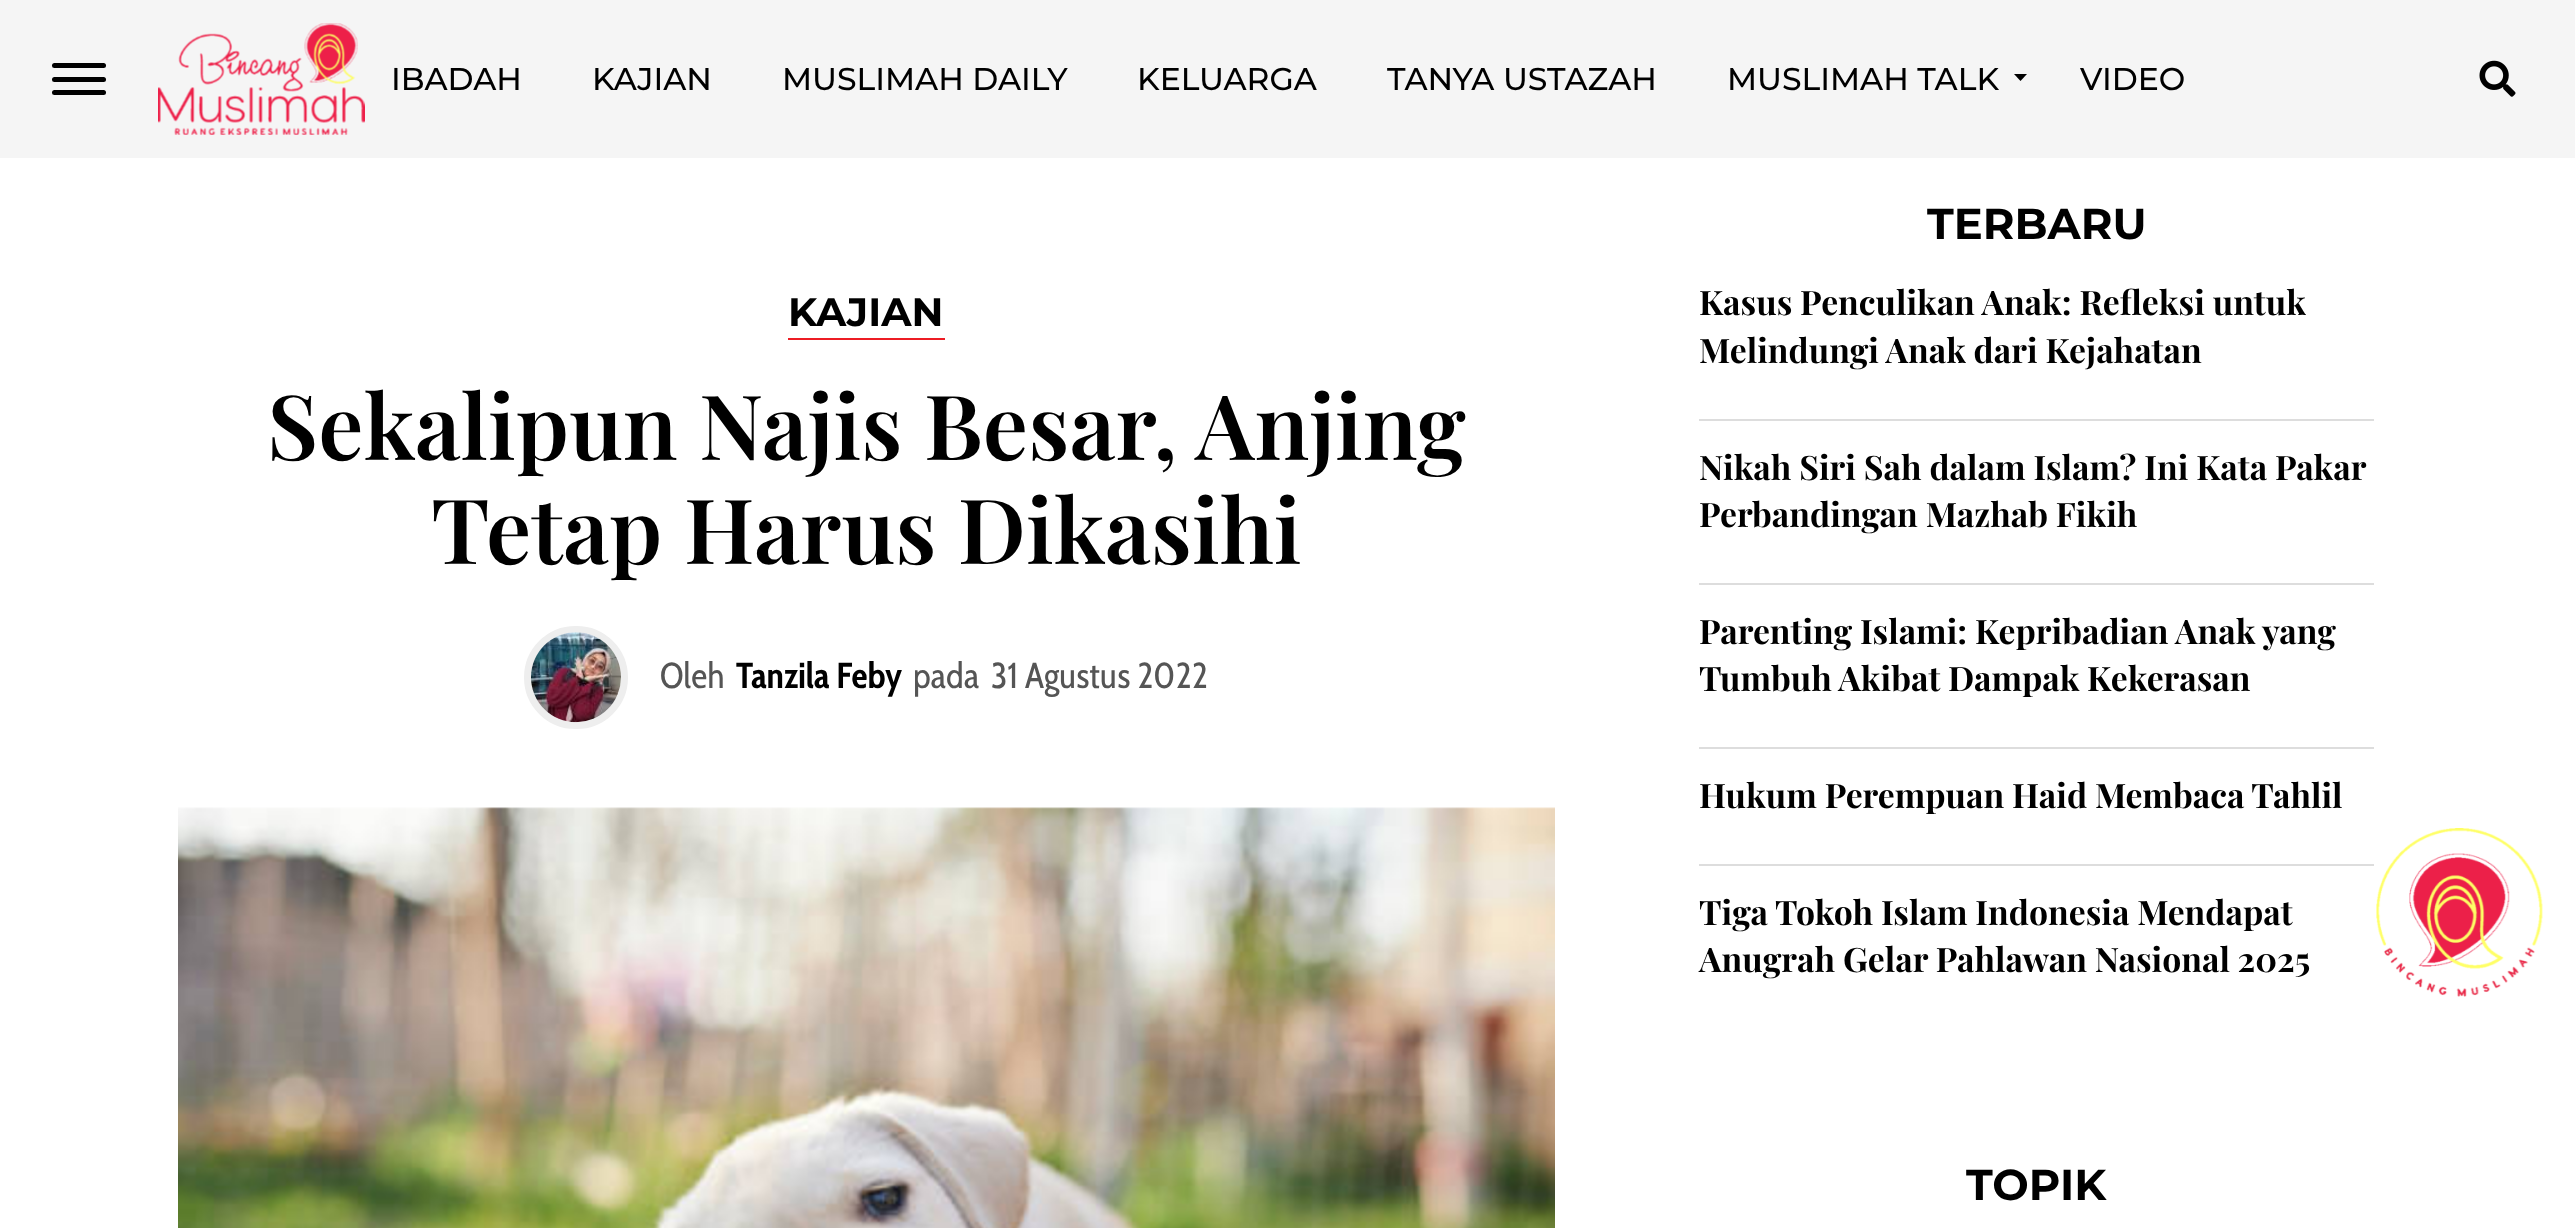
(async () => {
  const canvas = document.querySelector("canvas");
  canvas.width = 2575;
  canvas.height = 1228;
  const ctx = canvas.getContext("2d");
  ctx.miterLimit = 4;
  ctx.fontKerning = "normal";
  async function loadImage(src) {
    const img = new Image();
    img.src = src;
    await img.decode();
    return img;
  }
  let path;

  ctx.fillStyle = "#ffffff";
  ctx.fillRect(0, 0, 2575, 1228);
  ctx.fillStyle = "#f5f5f5";
  ctx.fillRect(0, 0, 2575, 158);
  ctx.fillStyle = "#000000";
  ctx.beginPath();
  ctx.roundRect(52, 63, 54, 5, 2.5);
  ctx.fill();
  ctx.beginPath();
  ctx.roundRect(52, 77, 54, 5, 2.5);
  ctx.fill();
  ctx.beginPath();
  ctx.roundRect(52, 90, 54, 5, 2.5);
  ctx.fill();
  ctx.drawImage(await loadImage("img/1.png"), 158, 23, 207, 112);
  path = new Path2D("M2014 74H2027L2020.5 81Z");
  ctx.fill(path);
  ctx.drawImage(await loadImage("img/2.png"), 2479, 60, 37, 37);
  ctx.fillStyle = "#ed1c24";
  ctx.fillRect(788, 338, 157, 2);
  ctx.beginPath();
  ctx.roundRect(527.5, 629.5, 97, 96, 48);
  ctx.strokeStyle = "#eeeeee";
  ctx.lineWidth = 7;
  ctx.stroke();
  ctx.drawImage(await loadImage("img/3.png"), 531, 632, 90, 91);
  ctx.drawImage(await loadImage("img/4.png"), 178, 807, 1377, 421);
  for (const [x, y, w, h, color] of [
    [1699, 419, 675, 2, "#dddddd"],
    [1699, 583, 675, 2, "#dddddd"],
    [1699, 747, 675, 2, "#dddddd"],
    [1699, 864, 675, 2, "#dddddd"],
  ]) {
    ctx.fillStyle = color;
    ctx.fillRect(x, y, w, h);
  }
  ctx.drawImage(await loadImage("img/5.png"), 2376, 828, 167, 169);
  ctx.font = "500 31.5px Montserrat";
  ctx.fillStyle = "#000000";
  for (const [text, x, y] of [
    ["IBADAH", 391, 90],
    ["KAJIAN", 592, 90],
    ["MUSLIMAH DAILY", 782, 90],
    ["KELUARGA", 1137, 90],
    ["TANYA USTAZAH", 1387, 90],
    ["MUSLIMAH TALK", 1727, 90],
    ["VIDEO", 2080, 90],
  ]) {
    ctx.fillText(text, x, y);
  }
  ctx.font = "bold 39.5px Montserrat";
  ctx.fillText("KAJIAN", 788, 326);
  ctx.font = "600 90px Playfair Display";
  ctx.fillText("Sekalipun Najis Besar, Anjing", 267, 460);
  ctx.fillText("Tetap Harus Dikasihi", 431, 564);
  ctx.font = "36px Cabin Condensed";
  ctx.fillStyle = "#555555";
  ctx.fillText("Oleh", 660, 688);
  ctx.font = "bold 36px Cabin Condensed";
  ctx.fillStyle = "#000000";
  ctx.fillText("Tanzila Feby", 736, 688);
  ctx.font = "36px Cabin Condensed";
  ctx.fillStyle = "#555555";
  ctx.fillText("pada", 913, 688);
  ctx.fillText("31 Agustus 2022", 991, 688);
  ctx.font = "bold 43.25px Montserrat";
  ctx.fillStyle = "#000000";
  ctx.fillText("TERBARU", 1927, 239);
  ctx.font = "bold 33.75px Playfair Display";
  for (const [text, x, y] of [
    ["Kasus Penculikan Anak: Refleksi untuk", 1699, 315],
    ["Melindungi Anak dari Kejahatan", 1699, 363],
    ["Nikah Siri Sah dalam Islam? Ini Kata Pakar", 1699, 480],
    ["Perbandingan Mazhab Fikih", 1699, 527],
    ["Parenting Islami: Kepribadian Anak yang", 1699, 644],
    ["Tumbuh Akibat Dampak Kekerasan", 1699, 691],
    ["Hukum Perempuan Haid Membaca Tahlil", 1699, 808],
    ["Tiga Tokoh Islam Indonesia Mendapat", 1699, 925],
    ["Anugrah Gelar Pahlawan Nasional 2025", 1699, 972],
  ]) {
    ctx.fillText(text, x, y);
  }
  ctx.font = "bold 43.25px Montserrat";
  ctx.fillText("TOPIK", 1966, 1200);
})();
